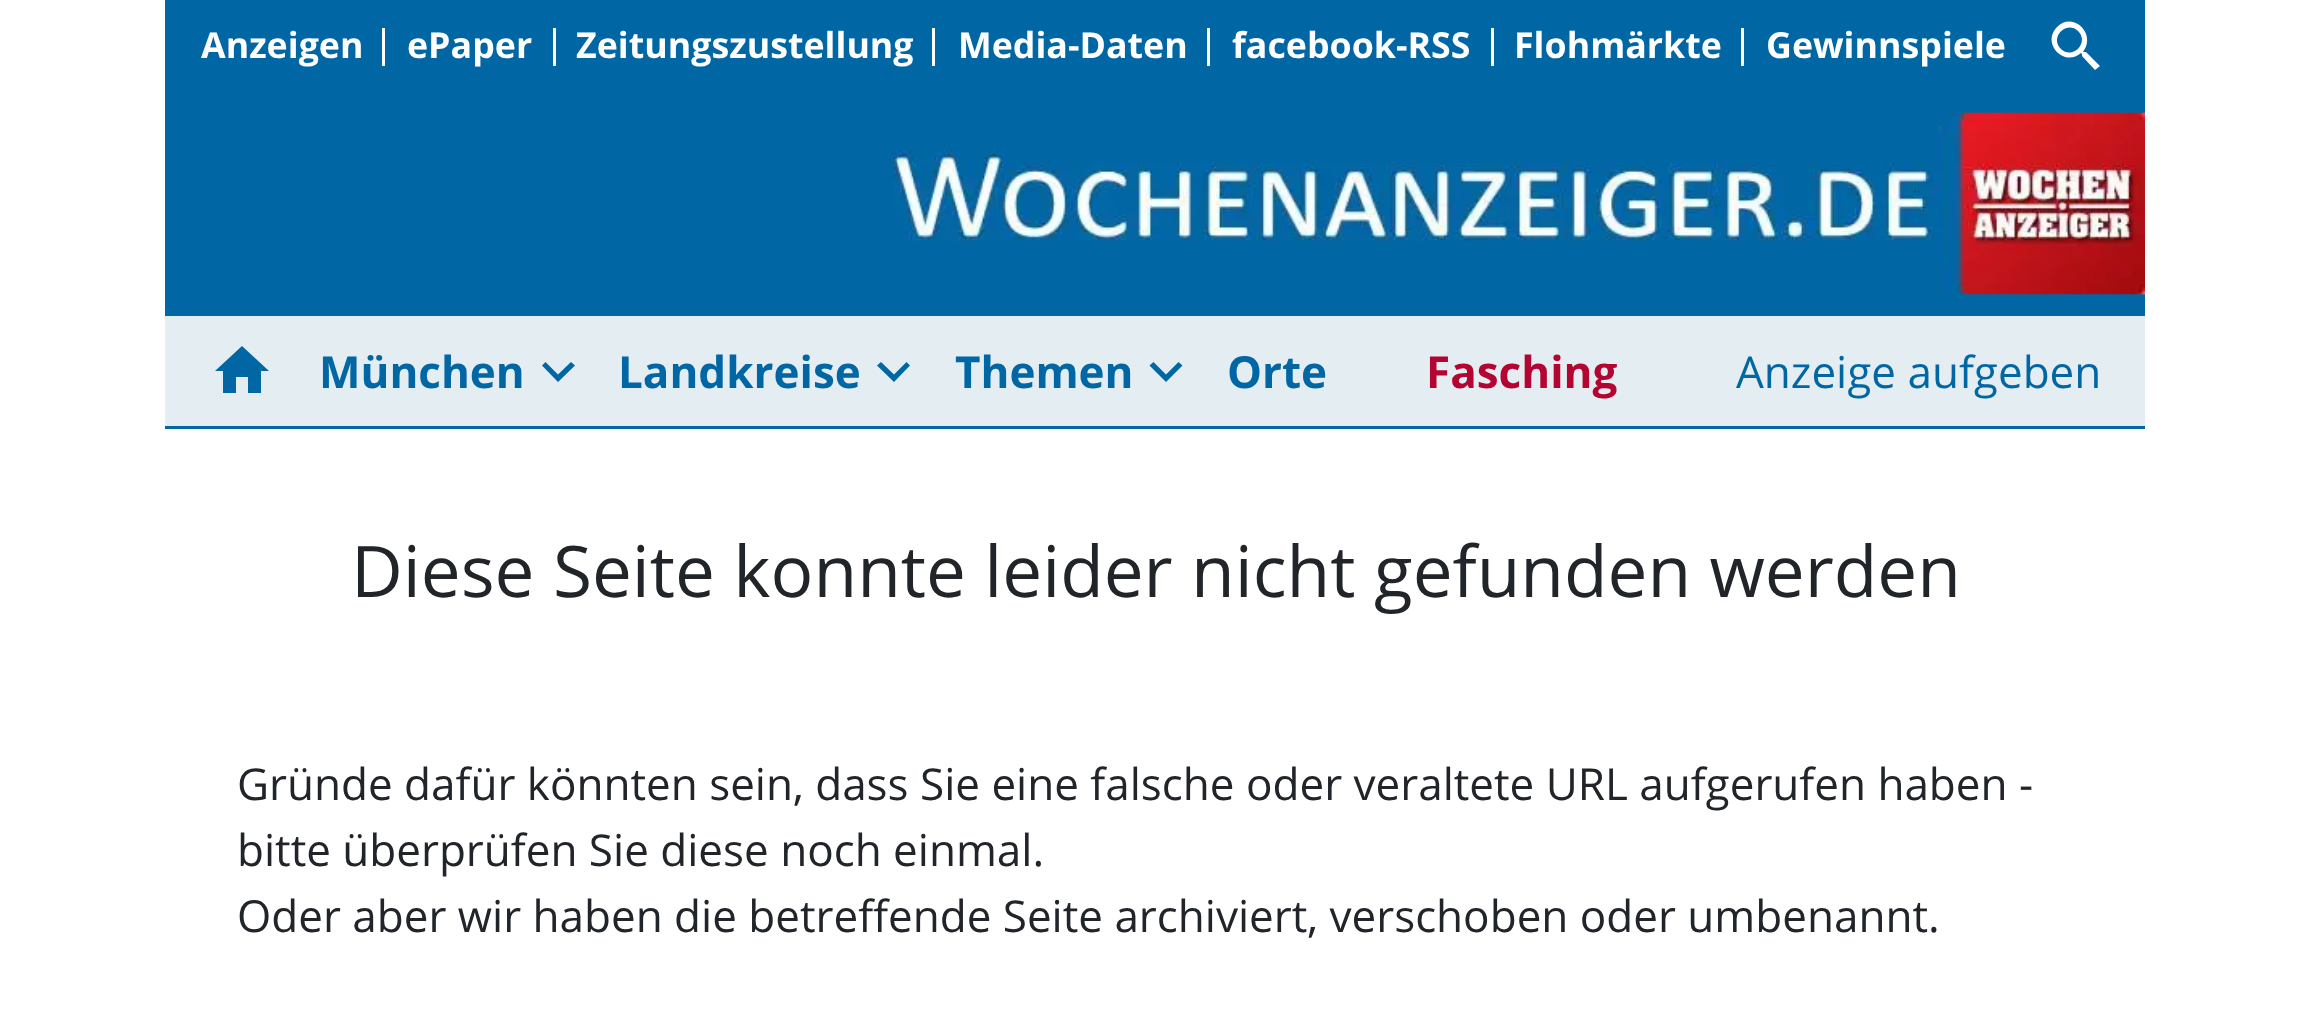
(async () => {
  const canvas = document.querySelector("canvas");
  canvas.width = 2309;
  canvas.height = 1025;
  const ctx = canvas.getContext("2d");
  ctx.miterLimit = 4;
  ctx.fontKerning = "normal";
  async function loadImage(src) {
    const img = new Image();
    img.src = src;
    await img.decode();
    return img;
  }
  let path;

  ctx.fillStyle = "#ffffff";
  ctx.fillRect(0, 0, 2309, 1025);
  ctx.fillStyle = "#0167a4";
  ctx.fillRect(165, 0, 1980, 316);
  ctx.drawImage(await loadImage("img/1.png"), 892, 112, 1253, 183);
  for (const [x, y, w, h, color] of [
    [382, 28, 3, 38, "#ffffff"],
    [553, 28, 3, 38, "#ffffff"],
    [932, 28, 3, 38, "#ffffff"],
    [1207, 28, 3, 38, "#ffffff"],
    [1491, 28, 3, 38, "#ffffff"],
    [1741, 28, 3, 38, "#ffffff"],
  ]) {
    ctx.fillStyle = color;
    ctx.fillRect(x, y, w, h);
  }
  path = new Path2D("M2061 49C2072 60 2090 43 2078 31C2067 20 2049 37 2061 49ZM2086 52L2100 66L2095 70L2082 56V54L2081 53C2064 68 2041 43 2057 27C2073 11 2097 34 2083 52H2084Z");
  ctx.fill(path);
  ctx.fillStyle = "#e4edf2";
  ctx.fillRect(165, 316, 1980, 110);
  ctx.fillStyle = "#0167a4";
  path = new Path2D("M236 393H223V371H215L242 346L269 371H261V393H248V377H236Z");
  ctx.fill(path);
  path = new Path2D("M571 362L575 365.5L558 382L542 365.5L545.5 362L558 374.5Z");
  ctx.fill(path);
  path = new Path2D("M906.5 362L910 365.5L894 382L877 365.5L881 362L894 374.5Z");
  ctx.fill(path);
  path = new Path2D("M1178.5 362L1182.5 365.5L1166 382L1149.5 365.5L1153.5 362L1166 374.5Z");
  ctx.fill(path);
  ctx.fillRect(165, 426, 1980, 3);
  ctx.font = "bold 35.75px Open Sans";
  ctx.fillStyle = "#ffffff";
  for (const [text, x, y] of [
    ["Anzeigen", 201, 58],
    ["ePaper", 407, 58],
    ["Zeitungszustellung", 576, 58],
    ["Media-Daten", 958, 58],
    ["facebook-RSS", 1232, 58],
    ["Flohmärkte", 1514, 58],
    ["Gewinnspiele", 1766, 58],
  ]) {
    ctx.fillText(text, x, y);
  }
  ctx.font = "bold 44px Open Sans";
  ctx.fillStyle = "#0167a4";
  for (const [text, x, y] of [
    ["München", 319, 388],
    ["Landkreise", 618, 388],
    ["Themen", 955, 388],
    ["Orte", 1227, 388],
  ]) {
    ctx.fillText(text, x, y);
  }
  ctx.fillStyle = "#b40431";
  ctx.fillText("Fasching", 1426, 388);
  ctx.font = "44px Open Sans";
  ctx.fillStyle = "#0167a4";
  ctx.fillText("Anzeige aufgeben", 1736, 388);
  ctx.font = "71.1px Open Sans";
  ctx.fillStyle = "#212529";
  ctx.fillText("Diese Seite konnte leider nicht gefunden werden", 351, 597);
  ctx.font = "44px Open Sans";
  for (const [text, x, y] of [
    ["Gründe dafür könnten sein, dass Sie eine falsche oder veraltete URL aufgerufen haben -", 237, 800],
    ["bitte überprüfen Sie diese noch einmal.", 237, 866],
    ["Oder aber wir haben die betreffende Seite archiviert, verschoben oder umbenannt.", 237, 932],
  ]) {
    ctx.fillText(text, x, y);
  }
})();
